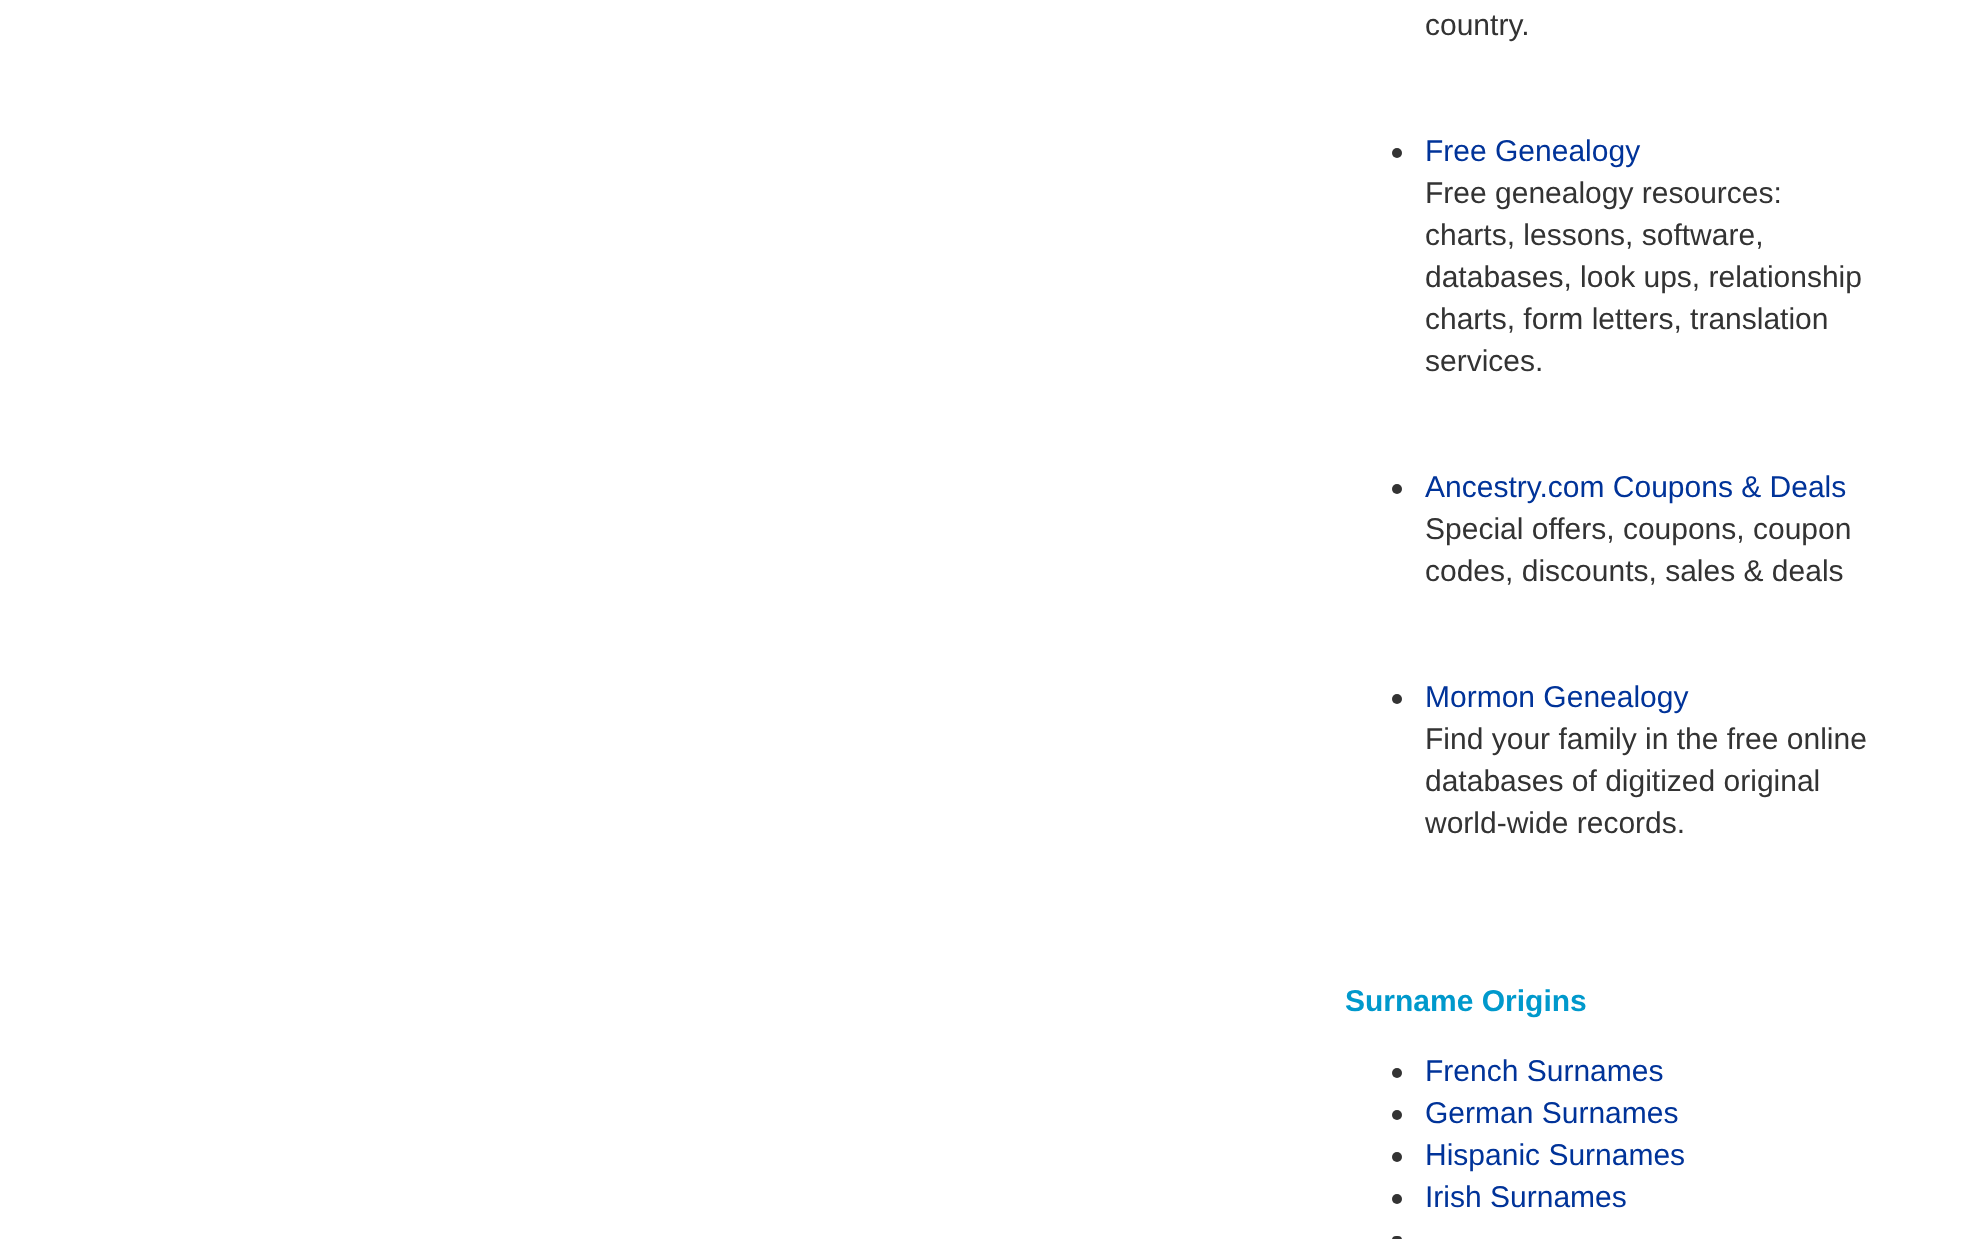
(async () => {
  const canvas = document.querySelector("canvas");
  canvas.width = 1986;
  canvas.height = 1239;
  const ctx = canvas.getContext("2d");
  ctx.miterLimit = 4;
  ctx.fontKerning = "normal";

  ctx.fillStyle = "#ffffff";
  ctx.fillRect(0, 0, 1986, 1239);
  ctx.fillStyle = "#333333";
  ctx.beginPath();
  ctx.arc(1397, 153, 5, 0, Math.PI * 2);
  ctx.fill();
  ctx.beginPath();
  ctx.arc(1397, 489, 5, 0, Math.PI * 2);
  ctx.fill();
  ctx.beginPath();
  ctx.arc(1397, 699, 5, 0, Math.PI * 2);
  ctx.fill();
  ctx.beginPath();
  ctx.arc(1397, 1073, 5, 0, Math.PI * 2);
  ctx.fill();
  ctx.beginPath();
  ctx.arc(1397, 1115, 5, 0, Math.PI * 2);
  ctx.fill();
  ctx.beginPath();
  ctx.arc(1397, 1157, 5, 0, Math.PI * 2);
  ctx.fill();
  ctx.beginPath();
  ctx.arc(1397, 1199, 5, 0, Math.PI * 2);
  ctx.fill();
  ctx.beginPath();
  ctx.roundRect(1392, 1236, 10, 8, 5);
  ctx.fill();
  ctx.font = "30px Liberation Sans";
  ctx.fillText("country.", 1425, 35);
  ctx.fillStyle = "#003399";
  ctx.fillText("Free Genealogy", 1425, 161);
  ctx.fillStyle = "#333333";
  for (const [text, x, y] of [
    ["Free genealogy resources:", 1425, 203],
    ["charts, lessons, software,", 1425, 245],
    ["databases, look ups, relationship", 1425, 287],
    ["charts, form letters, translation", 1425, 329],
    ["services.", 1425, 371],
  ]) {
    ctx.fillText(text, x, y);
  }
  ctx.fillStyle = "#003399";
  ctx.fillText("Ancestry.com Coupons & Deals", 1425, 497);
  ctx.fillStyle = "#333333";
  ctx.fillText("Special offers, coupons, coupon", 1425, 539);
  ctx.fillText("codes, discounts, sales & deals", 1425, 581);
  ctx.fillStyle = "#003399";
  ctx.fillText("Mormon Genealogy", 1425, 707);
  ctx.fillStyle = "#333333";
  for (const [text, x, y] of [
    ["Find your family in the free online", 1425, 749],
    ["databases of digitized original", 1425, 791],
    ["world-wide records.", 1425, 833],
  ]) {
    ctx.fillText(text, x, y);
  }
  ctx.font = "bold 30px Liberation Sans";
  ctx.fillStyle = "#0099cc";
  ctx.fillText("Surname Origins", 1345, 1011);
  ctx.font = "30px Liberation Sans";
  ctx.fillStyle = "#003399";
  for (const [text, x, y] of [
    ["French Surnames", 1425, 1081],
    ["German Surnames", 1425, 1123],
    ["Hispanic Surnames", 1425, 1165],
    ["Irish Surnames", 1425, 1207],
  ]) {
    ctx.fillText(text, x, y);
  }
})();
